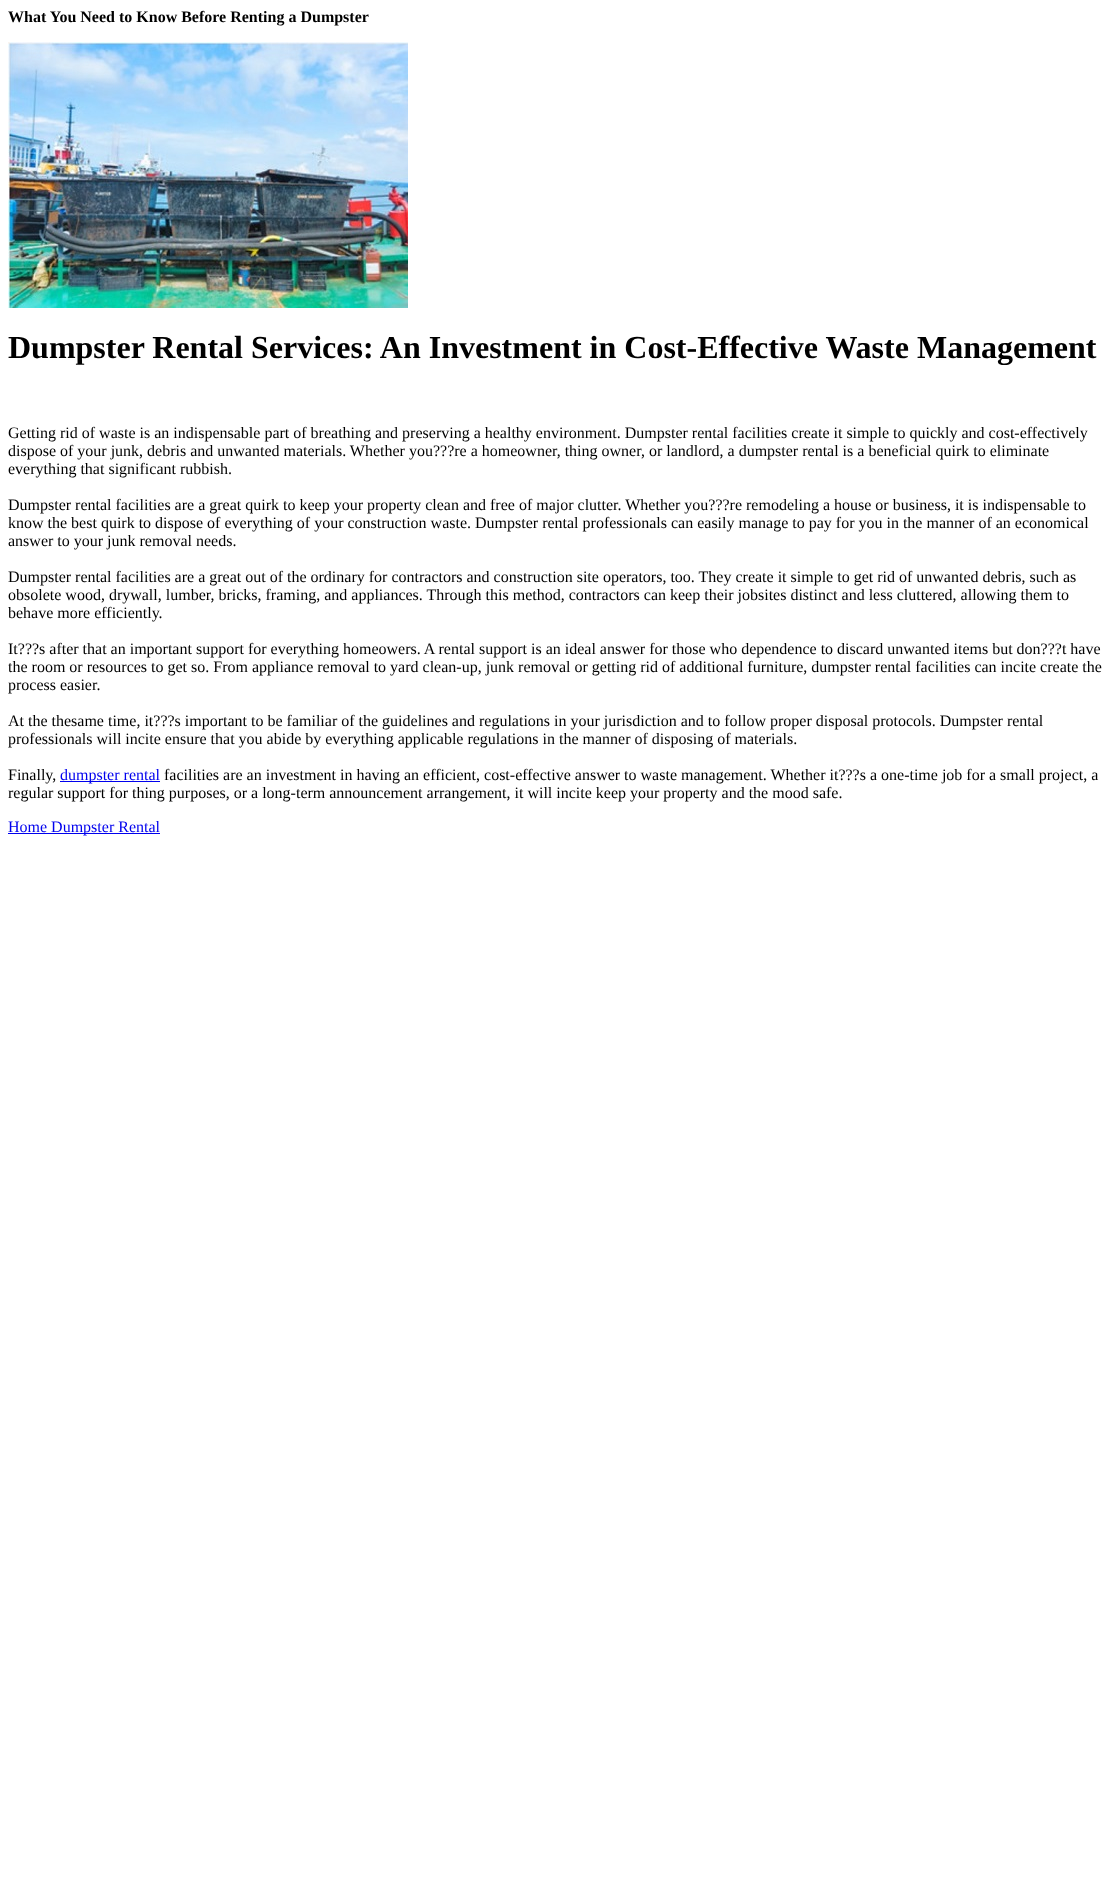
(async () => {
  const canvas = document.querySelector("canvas");
  canvas.width = 1118;
  canvas.height = 1896;
  const ctx = canvas.getContext("2d");
  ctx.miterLimit = 4;
  ctx.fontKerning = "normal";
  async function loadImage(src) {
    const img = new Image();
    img.src = src;
    await img.decode();
    return img;
  }

  ctx.fillStyle = "#ffffff";
  ctx.fillRect(0, 0, 1118, 1896);
  ctx.drawImage(await loadImage("img/1.png"), 8, 42, 400, 266);
  ctx.fillStyle = "#0000ee";
  ctx.fillRect(60, 781, 100, 1);
  ctx.fillRect(8, 833, 152, 1);
  ctx.font = "bold 16px Liberation Serif";
  ctx.fillStyle = "#000000";
  ctx.fillText("What You Need to Know Before Renting a Dumpster", 8, 22);
  ctx.font = "bold 32px Liberation Serif";
  ctx.fillText("Dumpster Rental Services: An Investment in Cost-Effective Waste Management", 8, 358);
  ctx.font = "16px Liberation Serif";
  for (const [text, x, y] of [
    ["Getting rid of waste is an indispensable part of breathing and preserving a healthy environment. Dumpster rental facilities create it simple to quickly and cost-effectively", 8, 438],
    ["dispose of your junk, debris and unwanted materials. Whether you???re a homeowner, thing owner, or landlord, a dumpster rental is a beneficial quirk to eliminate", 8, 456],
    ["everything that significant rubbish.", 8, 474],
    ["Dumpster rental facilities are a great quirk to keep your property clean and free of major clutter. Whether you???re remodeling a house or business, it is indispensable to", 8, 510],
    ["know the best quirk to dispose of everything of your construction waste. Dumpster rental professionals can easily manage to pay for you in the manner of an economical", 8, 528],
    ["answer to your junk removal needs.", 8, 546],
    ["Dumpster rental facilities are a great out of the ordinary for contractors and construction site operators, too. They create it simple to get rid of unwanted debris, such as", 8, 582],
    ["obsolete wood, drywall, lumber, bricks, framing, and appliances. Through this method, contractors can keep their jobsites distinct and less cluttered, allowing them to", 8, 600],
    ["behave more efficiently.", 8, 618],
    ["It???s after that an important support for everything homeowers. A rental support is an ideal answer for those who dependence to discard unwanted items but don???t have", 8, 654],
    ["the room or resources to get so. From appliance removal to yard clean-up, junk removal or getting rid of additional furniture, dumpster rental facilities can incite create the", 8, 672],
    ["process easier.", 8, 690],
    ["At the thesame time, it???s important to be familiar of the guidelines and regulations in your jurisdiction and to follow proper disposal protocols. Dumpster rental", 8, 726],
    ["professionals will incite ensure that you abide by everything applicable regulations in the manner of disposing of materials.", 8, 744],
    ["Finally,", 8, 780],
  ]) {
    ctx.fillText(text, x, y);
  }
  ctx.fillStyle = "#0000ee";
  ctx.fillText("dumpster rental", 60, 780);
  ctx.fillStyle = "#000000";
  ctx.fillText("facilities are an investment in having an efficient, cost-effective answer to waste management. Whether it???s a one-time job for a small project, a", 164, 780);
  ctx.fillText("regular support for thing purposes, or a long-term announcement arrangement, it will incite keep your property and the mood safe.", 8, 798);
  ctx.fillStyle = "#0000ee";
  ctx.fillText("Home Dumpster Rental", 8, 832);
})();
